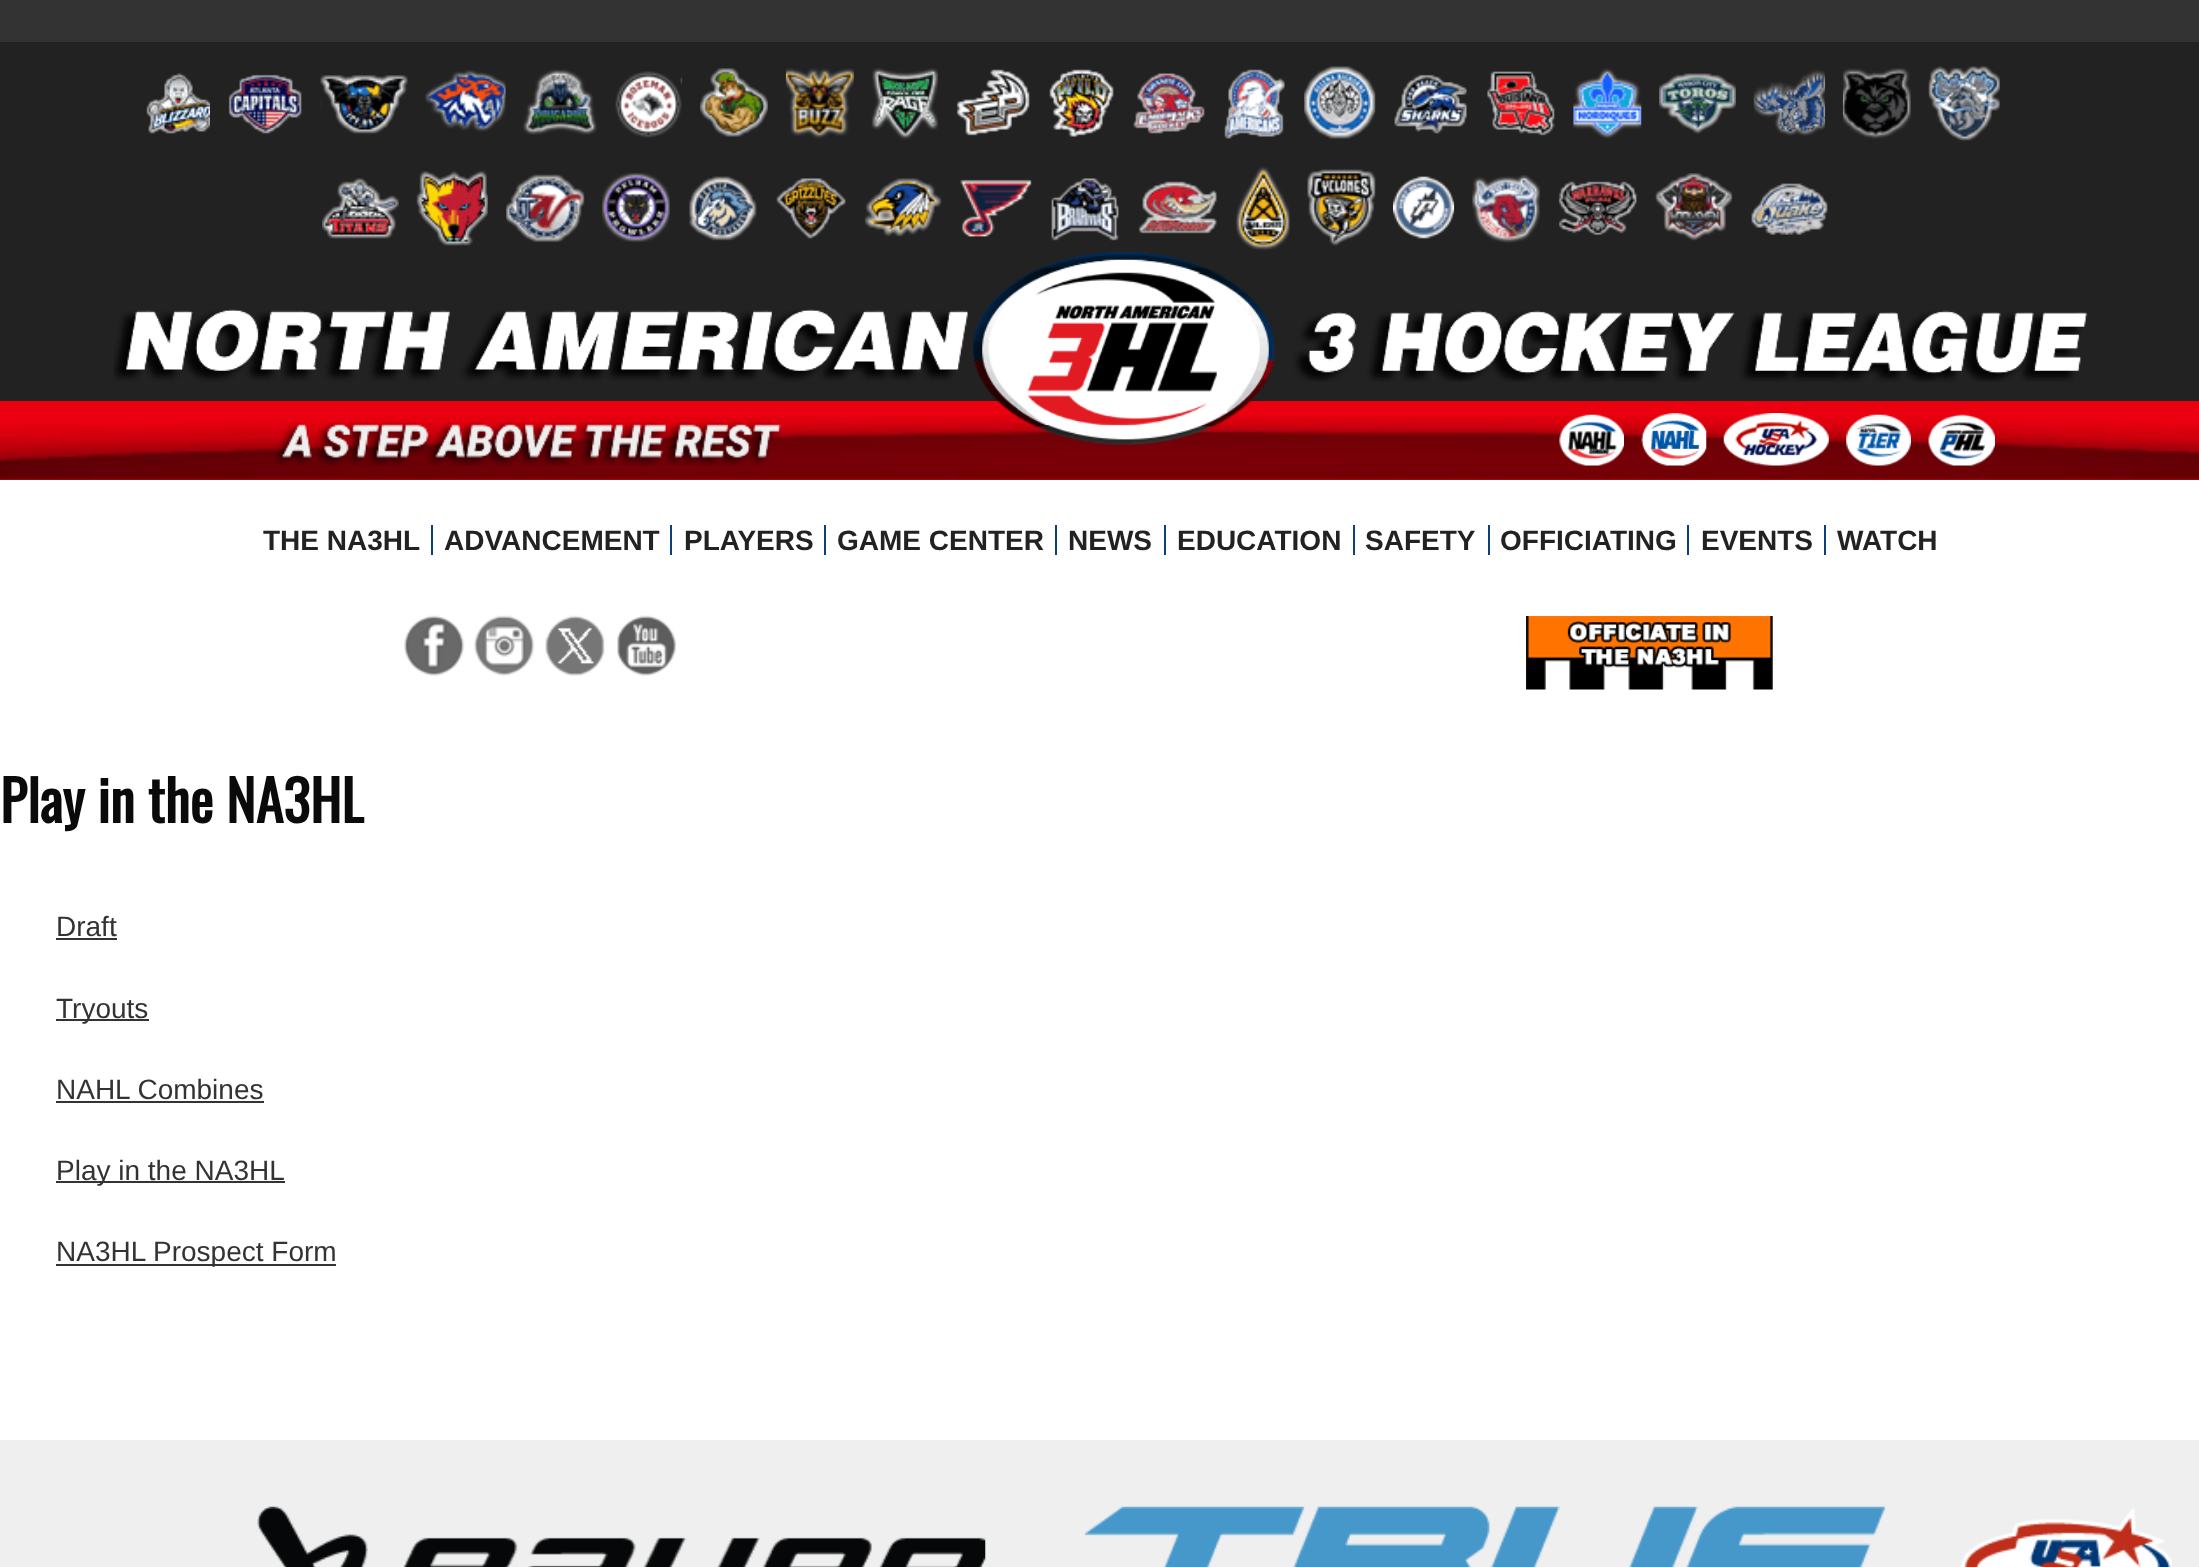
(async () => {
  const canvas = document.querySelector("canvas");
  canvas.width = 2199;
  canvas.height = 1567;
  const ctx = canvas.getContext("2d");
  ctx.miterLimit = 4;
  ctx.fontKerning = "normal";
  async function loadImage(src) {
    const img = new Image();
    img.src = src;
    await img.decode();
    return img;
  }

  ctx.fillStyle = "#333333";
  ctx.fillRect(0, 0, 2199, 1567);
  ctx.fillStyle = "#ffffff";
  ctx.fillRect(0, 480, 2199, 960);
  ctx.fillStyle = "#222222";
  ctx.fillRect(0, 42, 2199, 359);
  ctx.drawImage(await loadImage("img/1.png"), 146, 73, 64, 61);
  ctx.drawImage(await loadImage("img/2.png"), 228, 74, 74, 60);
  ctx.drawImage(await loadImage("img/3.png"), 320, 75, 88, 59);
  ctx.drawImage(await loadImage("img/4.png"), 425, 70, 81, 62);
  ctx.drawImage(await loadImage("img/5.png"), 523, 69, 74, 66);
  ctx.drawImage(await loadImage("img/6.png"), 614, 71, 69, 67);
  ctx.drawImage(await loadImage("img/7.png"), 700, 68, 68, 69);
  ctx.drawImage(await loadImage("img/8.png"), 785, 68, 69, 71);
  ctx.drawImage(await loadImage("img/9.png"), 871, 68, 67, 72);
  ctx.drawImage(await loadImage("img/10.png"), 956, 69, 74, 67);
  ctx.drawImage(await loadImage("img/11.png"), 1049, 69, 65, 68);
  ctx.drawImage(await loadImage("img/12.png"), 1133, 73, 72, 61);
  ctx.drawImage(await loadImage("img/13.png"), 1224, 69, 61, 70);
  ctx.drawImage(await loadImage("img/14.png"), 1304, 66, 72, 73);
  ctx.drawImage(await loadImage("img/15.png"), 1394, 74, 73, 60);
  ctx.drawImage(await loadImage("img/16.png"), 1487, 71, 68, 65);
  ctx.drawImage(await loadImage("img/17.png"), 1573, 68, 69, 71);
  ctx.drawImage(await loadImage("img/18.png"), 1659, 73, 77, 61);
  ctx.drawImage(await loadImage("img/19.png"), 1753, 69, 73, 67);
  ctx.drawImage(await loadImage("img/20.png"), 1842, 68, 69, 71);
  ctx.drawImage(await loadImage("img/21.png"), 1928, 66, 72, 75);
  ctx.drawImage(await loadImage("img/22.png"), 322, 178, 77, 61);
  ctx.drawImage(await loadImage("img/23.png"), 416, 171, 72, 75);
  ctx.drawImage(await loadImage("img/24.png"), 506, 174, 79, 68);
  ctx.drawImage(await loadImage("img/25.png"), 602, 173, 68, 69);
  ctx.drawImage(await loadImage("img/26.png"), 689, 176, 68, 65);
  ctx.drawImage(await loadImage("img/27.png"), 776, 178, 70, 61);
  ctx.drawImage(await loadImage("img/28.png"), 864, 178, 78, 59);
  ctx.drawImage(await loadImage("img/29.png"), 960, 179, 72, 58);
  ctx.drawImage(await loadImage("img/30.png"), 1051, 178, 68, 63);
  ctx.drawImage(await loadImage("img/31.png"), 1138, 181, 79, 53);
  ctx.drawImage(await loadImage("img/32.png"), 1235, 166, 55, 85);
  ctx.drawImage(await loadImage("img/33.png"), 1307, 169, 69, 77);
  ctx.drawImage(await loadImage("img/34.png"), 1393, 176, 62, 63);
  ctx.drawImage(await loadImage("img/35.png"), 1472, 175, 68, 68);
  ctx.drawImage(await loadImage("img/36.png"), 1558, 181, 79, 54);
  ctx.drawImage(await loadImage("img/37.png"), 1655, 173, 78, 68);
  ctx.drawImage(await loadImage("img/38.png"), 1751, 183, 77, 52);
  ctx.drawImage(await loadImage("img/40.png"), 113, 309, 1975, 73);
  ctx.fillStyle = "#ea000e";
  ctx.fillRect(0, 401, 2199, 79);
  ctx.drawImage(await loadImage("img/41.png"), 0, 415, 2199, 65);
  ctx.drawImage(await loadImage("img/39.png"), 973, 252, 301, 193);
  ctx.drawImage(await loadImage("img/42.png"), 275, 422, 506, 44);
  ctx.drawImage(await loadImage("img/43.png"), 1559, 414, 65, 52);
  ctx.drawImage(await loadImage("img/44.png"), 1641, 413, 66, 53);
  ctx.drawImage(await loadImage("img/45.png"), 1723, 413, 106, 53);
  ctx.drawImage(await loadImage("img/46.png"), 1846, 414, 65, 52);
  ctx.drawImage(await loadImage("img/47.png"), 1928, 414, 67, 52);
  for (const [x, y, w, h, color] of [
    [431, 525, 2, 30, "#0c4076"],
    [670, 525, 2, 30, "#0c4076"],
    [824, 525, 2, 30, "#0c4076"],
    [1055, 525, 2, 30, "#0c4076"],
    [1164, 525, 2, 30, "#0c4076"],
    [1353, 525, 2, 30, "#0c4076"],
    [1488, 525, 2, 30, "#0c4076"],
    [1687, 525, 2, 30, "#0c4076"],
    [1824, 525, 2, 30, "#0c4076"],
  ]) {
    ctx.fillStyle = color;
    ctx.fillRect(x, y, w, h);
  }
  ctx.drawImage(await loadImage("img/48.png"), 404, 615, 61, 61);
  ctx.drawImage(await loadImage("img/49.png"), 474, 615, 61, 61);
  ctx.drawImage(await loadImage("img/50.png"), 545, 615, 60, 61);
  ctx.drawImage(await loadImage("img/51.png"), 617, 615, 59, 61);
  ctx.drawImage(await loadImage("img/52.png"), 1526, 616, 247, 74);
  for (const [x, y, w, h, color] of [
    [56, 938, 61, 2, "#333333"],
    [56, 1019, 93, 2, "#333333"],
    [56, 1101, 208, 2, "#333333"],
    [56, 1181, 229, 2, "#333333"],
    [56, 1264, 280, 2, "#333333"],
    [0, 1440, 2199, 127, "#efefef"],
  ]) {
    ctx.fillStyle = color;
    ctx.fillRect(x, y, w, h);
  }
  ctx.drawImage(await loadImage("img/53.png"), 257, 1506, 729, 61);
  ctx.drawImage(await loadImage("img/54.png"), 1085, 1506, 800, 61);
  ctx.drawImage(await loadImage("img/55.png"), 1960, 1508, 212, 59);
  ctx.font = "bold 28px Liberation Sans";
  ctx.fillStyle = "#222222";
  for (const [text, x, y] of [
    ["THE NA3HL", 263, 550],
    ["ADVANCEMENT", 444, 550],
    ["PLAYERS", 684, 550],
    ["GAME CENTER", 837, 550],
    ["NEWS", 1068, 550],
    ["EDUCATION", 1177, 550],
    ["SAFETY", 1365, 550],
    ["OFFICIATING", 1500, 550],
    ["EVENTS", 1701, 550],
    ["WATCH", 1837, 550],
  ]) {
    ctx.fillText(text, x, y);
  }
  ctx.font = "bold 56px Oswald";
  ctx.fillStyle = "#0a0a0a";
  ctx.fillText("Play in the NA3HL", 0, 823);
  ctx.font = "28px Liberation Sans";
  ctx.fillStyle = "#333333";
  for (const [text, x, y] of [
    ["Draft", 56, 936],
    ["Tryouts", 56, 1018],
    ["NAHL Combines", 56, 1099],
    ["Play in the NA3HL", 56, 1180],
    ["NA3HL Prospect Form", 56, 1261],
  ]) {
    ctx.fillText(text, x, y);
  }
})();
